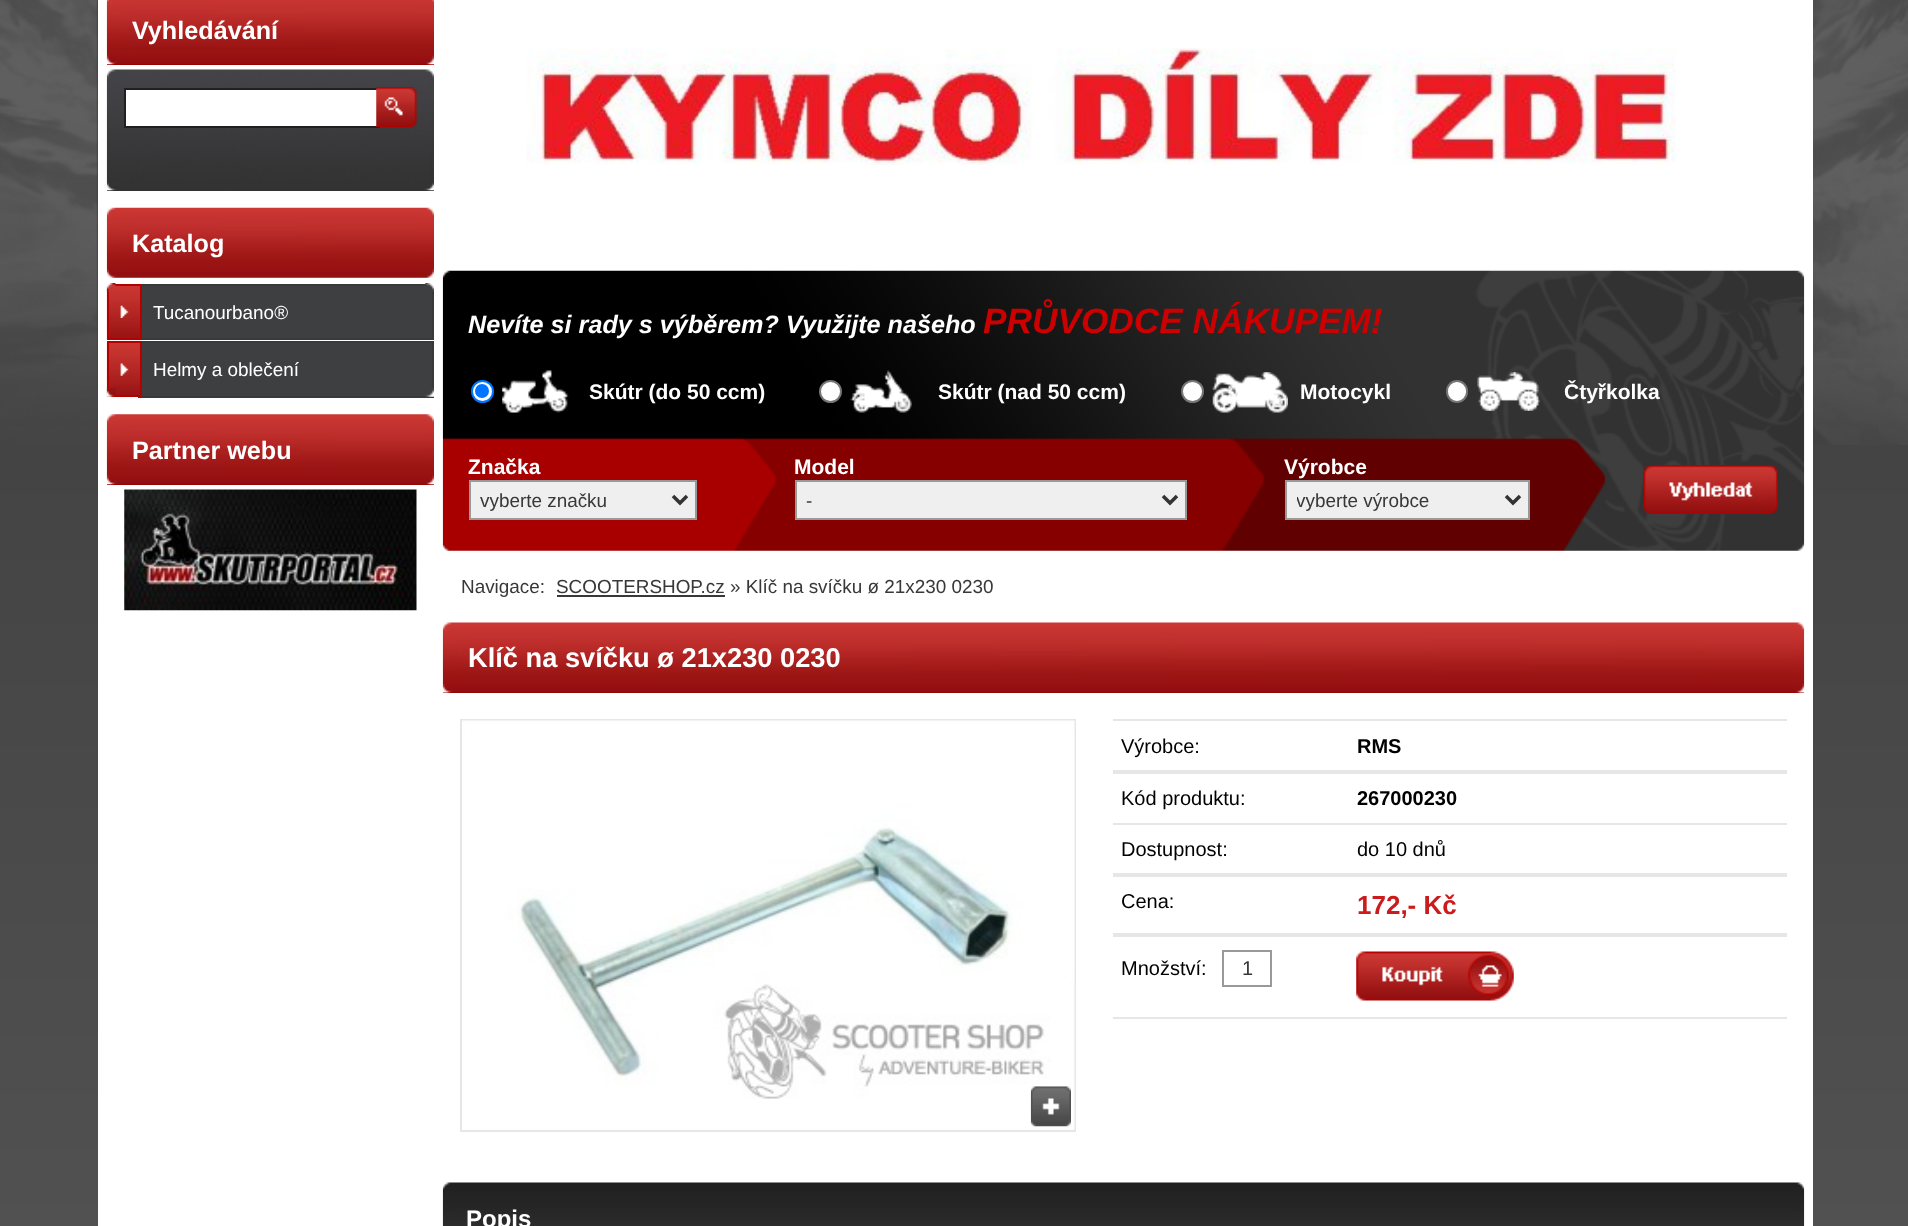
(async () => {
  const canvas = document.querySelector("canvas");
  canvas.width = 1908;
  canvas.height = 1226;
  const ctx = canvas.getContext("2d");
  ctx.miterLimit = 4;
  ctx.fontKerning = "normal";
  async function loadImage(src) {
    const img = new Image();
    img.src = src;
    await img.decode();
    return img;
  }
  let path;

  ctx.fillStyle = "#ffffff";
  ctx.fillRect(0, 0, 1908, 1226);
  ctx.drawImage(await loadImage("img/1.png"), 0, 445, 1908, 781);
  ctx.drawImage(await loadImage("img/2.png"), 0, 0, 1908, 445);
  ctx.fillRect(98, 0, 1715, 1226);
  ctx.fillStyle = "#990000";
  ctx.fillRect(107, 64, 327, 1);
  ctx.drawImage(await loadImage("img/3.png"), 106, 0, 328, 65);
  ctx.fillStyle = "#333333";
  ctx.fillRect(107, 190, 327, 1);
  ctx.drawImage(await loadImage("img/4.png"), 106, 69, 328, 122);
  for (const [x, y, w, h, color] of [
    [126, 90, 251, 36, "#ffffff"],
    [124, 88, 256, 2, "#202020"],
    [124, 126, 256, 2, "#202020"],
    [124, 88, 2, 40, "#202020"],
  ]) {
    ctx.fillStyle = color;
    ctx.fillRect(x, y, w, h);
  }
  ctx.drawImage(await loadImage("img/5.png"), 376, 87, 41, 41);
  ctx.drawImage(await loadImage("img/6.png"), 106, 207, 328, 71);
  for (const [x, y, w, h, color] of [
    [142, 286, 290, 52, "#3e3f40"],
    [138, 284, 296, 2, "#393939"],
    [432, 284, 2, 56, "#393939"],
    [138, 338, 296, 2, "#393939"],
  ]) {
    ctx.fillStyle = color;
    ctx.fillRect(x, y, w, h);
  }
  ctx.drawImage(await loadImage("img/9.png"), 106, 285, 34, 54);
  ctx.strokeStyle = "#b40000";
  ctx.lineWidth = 2;
  ctx.strokeRect(108, 285, 33, 54);
  ctx.drawImage(await loadImage("img/7.png"), 106, 283, 10, 9);
  ctx.drawImage(await loadImage("img/8.png"), 425, 283, 9, 9);
  ctx.drawImage(await loadImage("img/10.png"), 120, 305, 9, 13);
  for (const [x, y, w, h, color] of [
    [142, 343, 290, 53, "#3e3f40"],
    [138, 341, 296, 2, "#393939"],
    [432, 341, 2, 47, "#393939"],
    [138, 396, 296, 2, "#393939"],
  ]) {
    ctx.fillStyle = color;
    ctx.fillRect(x, y, w, h);
  }
  ctx.drawImage(await loadImage("img/11.png"), 106, 342, 34, 55);
  ctx.strokeRect(108, 342, 33, 54);
  ctx.drawImage(await loadImage("img/12.png"), 120, 363, 9, 13);
  ctx.drawImage(await loadImage("img/13.png"), 106, 388, 10, 9);
  ctx.drawImage(await loadImage("img/14.png"), 425, 388, 9, 9);
  ctx.fillStyle = "#990000";
  ctx.fillRect(107, 484, 327, 1);
  ctx.drawImage(await loadImage("img/15.png"), 106, 414, 328, 71);
  ctx.drawImage(await loadImage("img/16.png"), 124, 489, 293, 122);
  ctx.drawImage(await loadImage("img/17.png"), 526, 48, 1150, 117);
  ctx.drawImage(await loadImage("img/18.png"), 442, 270, 1363, 281);
  ctx.fillStyle = "#ffffff";
  ctx.beginPath();
  ctx.arc(482.5, 391.5, 10.5, 0, Math.PI * 2);
  ctx.fill();
  ctx.strokeStyle = "#0075ff";
  ctx.stroke();
  ctx.fillStyle = "#0075ff";
  ctx.beginPath();
  ctx.arc(482, 391, 7, 0, Math.PI * 2);
  ctx.fill();
  ctx.drawImage(await loadImage("img/19.png"), 502, 370, 67, 43);
  ctx.fillStyle = "#ffffff";
  ctx.beginPath();
  ctx.arc(830.5, 391.5, 10.5, 0, Math.PI * 2);
  ctx.fill();
  ctx.strokeStyle = "#767676";
  ctx.stroke();
  ctx.drawImage(await loadImage("img/20.png"), 850, 370, 62, 43);
  ctx.beginPath();
  ctx.arc(1192.5, 391.5, 10.5, 0, Math.PI * 2);
  ctx.fill();
  ctx.stroke();
  ctx.drawImage(await loadImage("img/21.png"), 1212, 372, 76, 41);
  ctx.beginPath();
  ctx.roundRect(1447, 381, 20, 21, 10);
  ctx.fill();
  ctx.stroke();
  ctx.drawImage(await loadImage("img/22.png"), 1477, 372, 63, 39);
  ctx.fillStyle = "#efefef";
  ctx.beginPath();
  ctx.rect(470, 481, 226, 38);
  ctx.fill();
  ctx.strokeStyle = "#999999";
  ctx.stroke();
  path = new Path2D("M673 496L680 503L687 496");
  ctx.strokeStyle = "#333333";
  ctx.lineWidth = 3.5;
  ctx.stroke(path);
  ctx.beginPath();
  ctx.rect(796, 481, 390, 38);
  ctx.fill();
  ctx.strokeStyle = "#999999";
  ctx.lineWidth = 2;
  ctx.stroke();
  path = new Path2D("M1163 496L1170 503L1177 496");
  ctx.strokeStyle = "#333333";
  ctx.lineWidth = 3.5;
  ctx.stroke(path);
  ctx.beginPath();
  ctx.rect(1286, 481, 243, 38);
  ctx.fill();
  ctx.strokeStyle = "#999999";
  ctx.lineWidth = 2;
  ctx.stroke();
  path = new Path2D("M1506 496L1513 503L1520 496");
  ctx.strokeStyle = "#333333";
  ctx.lineWidth = 3.5;
  ctx.stroke(path);
  ctx.drawImage(await loadImage("img/23.png"), 1643, 465, 135, 49);
  ctx.fillStyle = "#383838";
  ctx.fillRect(557, 595, 168, 2);
  ctx.fillStyle = "#990000";
  ctx.fillRect(443, 692, 1361, 1);
  ctx.drawImage(await loadImage("img/24.png"), 442, 622, 1363, 71);
  ctx.strokeStyle = "#e6e6e6";
  ctx.lineWidth = 2;
  ctx.strokeRect(461, 720, 614, 411);
  ctx.drawImage(await loadImage("img/25.png"), 462, 720, 613, 410);
  ctx.drawImage(await loadImage("img/26.png"), 1030, 1086, 41, 41);
  for (const [x, y, w, h, color] of [
    [1113, 719, 674, 2, "#e6e6e6"],
    [1113, 770, 674, 2, "#e6e6e6"],
    [1113, 772, 674, 2, "#e6e6e6"],
    [1113, 823, 674, 2, "#e6e6e6"],
    [1113, 873, 674, 2, "#e6e6e6"],
    [1113, 875, 674, 2, "#e6e6e6"],
    [1113, 933, 674, 2, "#e6e6e6"],
    [1113, 935, 674, 2, "#e6e6e6"],
    [1113, 1017, 674, 2, "#e6e6e6"],
  ]) {
    ctx.fillStyle = color;
    ctx.fillRect(x, y, w, h);
  }
  ctx.strokeStyle = "#999999";
  ctx.strokeRect(1223, 951, 48, 35);
  ctx.drawImage(await loadImage("img/27.png"), 1356, 951, 158, 50);
  ctx.drawImage(await loadImage("img/28.png"), 442, 1182, 1363, 44);
  ctx.font = "bold 25.2px Liberation Sans";
  ctx.fillStyle = "#ffffff";
  ctx.fillText("Vyhledávání", 132, 39);
  ctx.fillText("Katalog", 132, 252);
  ctx.font = "18.9px Liberation Sans";
  ctx.fillText("Tucanourbano®", 153, 319);
  ctx.fillText("Helmy a oblečení", 153, 376);
  ctx.font = "bold 25.2px Liberation Sans";
  ctx.fillText("Partner webu", 132, 459);
  ctx.font = "italic bold 25.2px Liberation Sans";
  ctx.fillText("Nevíte si rady s výběrem? Využijte našeho", 468, 333);
  ctx.font = "italic bold 35.25px Liberation Sans";
  ctx.fillStyle = "#cc0000";
  ctx.fillText("PRŮVODCE NÁKUPEM!", 983, 333);
  ctx.font = "bold 21px Liberation Sans";
  ctx.fillStyle = "#ffffff";
  for (const [text, x, y] of [
    ["Skútr (do 50 ccm)", 589, 399],
    ["Skútr (nad 50 ccm)", 938, 399],
    ["Motocykl", 1300, 399],
    ["Čtyřkolka", 1564, 399],
    ["Značka", 468, 474],
  ]) {
    ctx.fillText(text, x, y);
  }
  ctx.font = "18.9px Liberation Sans";
  ctx.fillStyle = "#383838";
  ctx.fillText("vyberte značku", 480, 507);
  ctx.font = "bold 21px Liberation Sans";
  ctx.fillStyle = "#ffffff";
  ctx.fillText("Model", 794, 474);
  ctx.font = "18.9px Liberation Sans";
  ctx.fillStyle = "#383838";
  ctx.fillText("-", 806, 507);
  ctx.font = "bold 21px Liberation Sans";
  ctx.fillStyle = "#ffffff";
  ctx.fillText("Výrobce", 1284, 474);
  ctx.save();
  ctx.beginPath();
  ctx.rect(1297, 488, 199, 25);
  ctx.clip();
  ctx.font = "18.9px Liberation Sans";
  ctx.fillStyle = "#383838";
  ctx.fillText("vyberte výrobce", 1296, 507);
  ctx.restore();
  ctx.font = "18.9px Liberation Sans";
  ctx.fillStyle = "#383838";
  ctx.fillText("Navigace:", 461, 593);
  ctx.fillText("SCOOTERSHOP.cz » Klíč na svíčku ø 21x230 0230", 556, 593);
  ctx.font = "bold 27.25px Liberation Sans";
  ctx.fillStyle = "#ffffff";
  ctx.fillText("Klíč na svíčku ø 21x230 0230", 468, 667);
  ctx.font = "20px Liberation Sans";
  ctx.fillStyle = "#000000";
  ctx.fillText("Výrobce:", 1121, 753);
  ctx.font = "bold 20px Liberation Sans";
  ctx.fillText("RMS", 1357, 753);
  ctx.font = "20px Liberation Sans";
  ctx.fillText("Kód produktu:", 1121, 805);
  ctx.font = "bold 20px Liberation Sans";
  ctx.fillText("267000230", 1357, 805);
  ctx.font = "20px Liberation Sans";
  for (const [text, x, y] of [
    ["Dostupnost:", 1121, 856],
    ["do 10 dnů", 1357, 856],
    ["Cena:", 1121, 908],
  ]) {
    ctx.fillText(text, x, y);
  }
  ctx.font = "bold 26px Liberation Sans";
  ctx.fillStyle = "#cb1b1d";
  ctx.fillText("172,- Kč", 1357, 914);
  ctx.font = "20px Liberation Sans";
  ctx.fillStyle = "#000000";
  ctx.fillText("Množství:", 1121, 975);
  ctx.fillStyle = "#383838";
  ctx.fillText("1", 1242, 975);
  ctx.font = "bold 24px Liberation Sans";
  ctx.fillStyle = "#ffffff";
  ctx.fillText("Popis", 466, 1227);
})();
